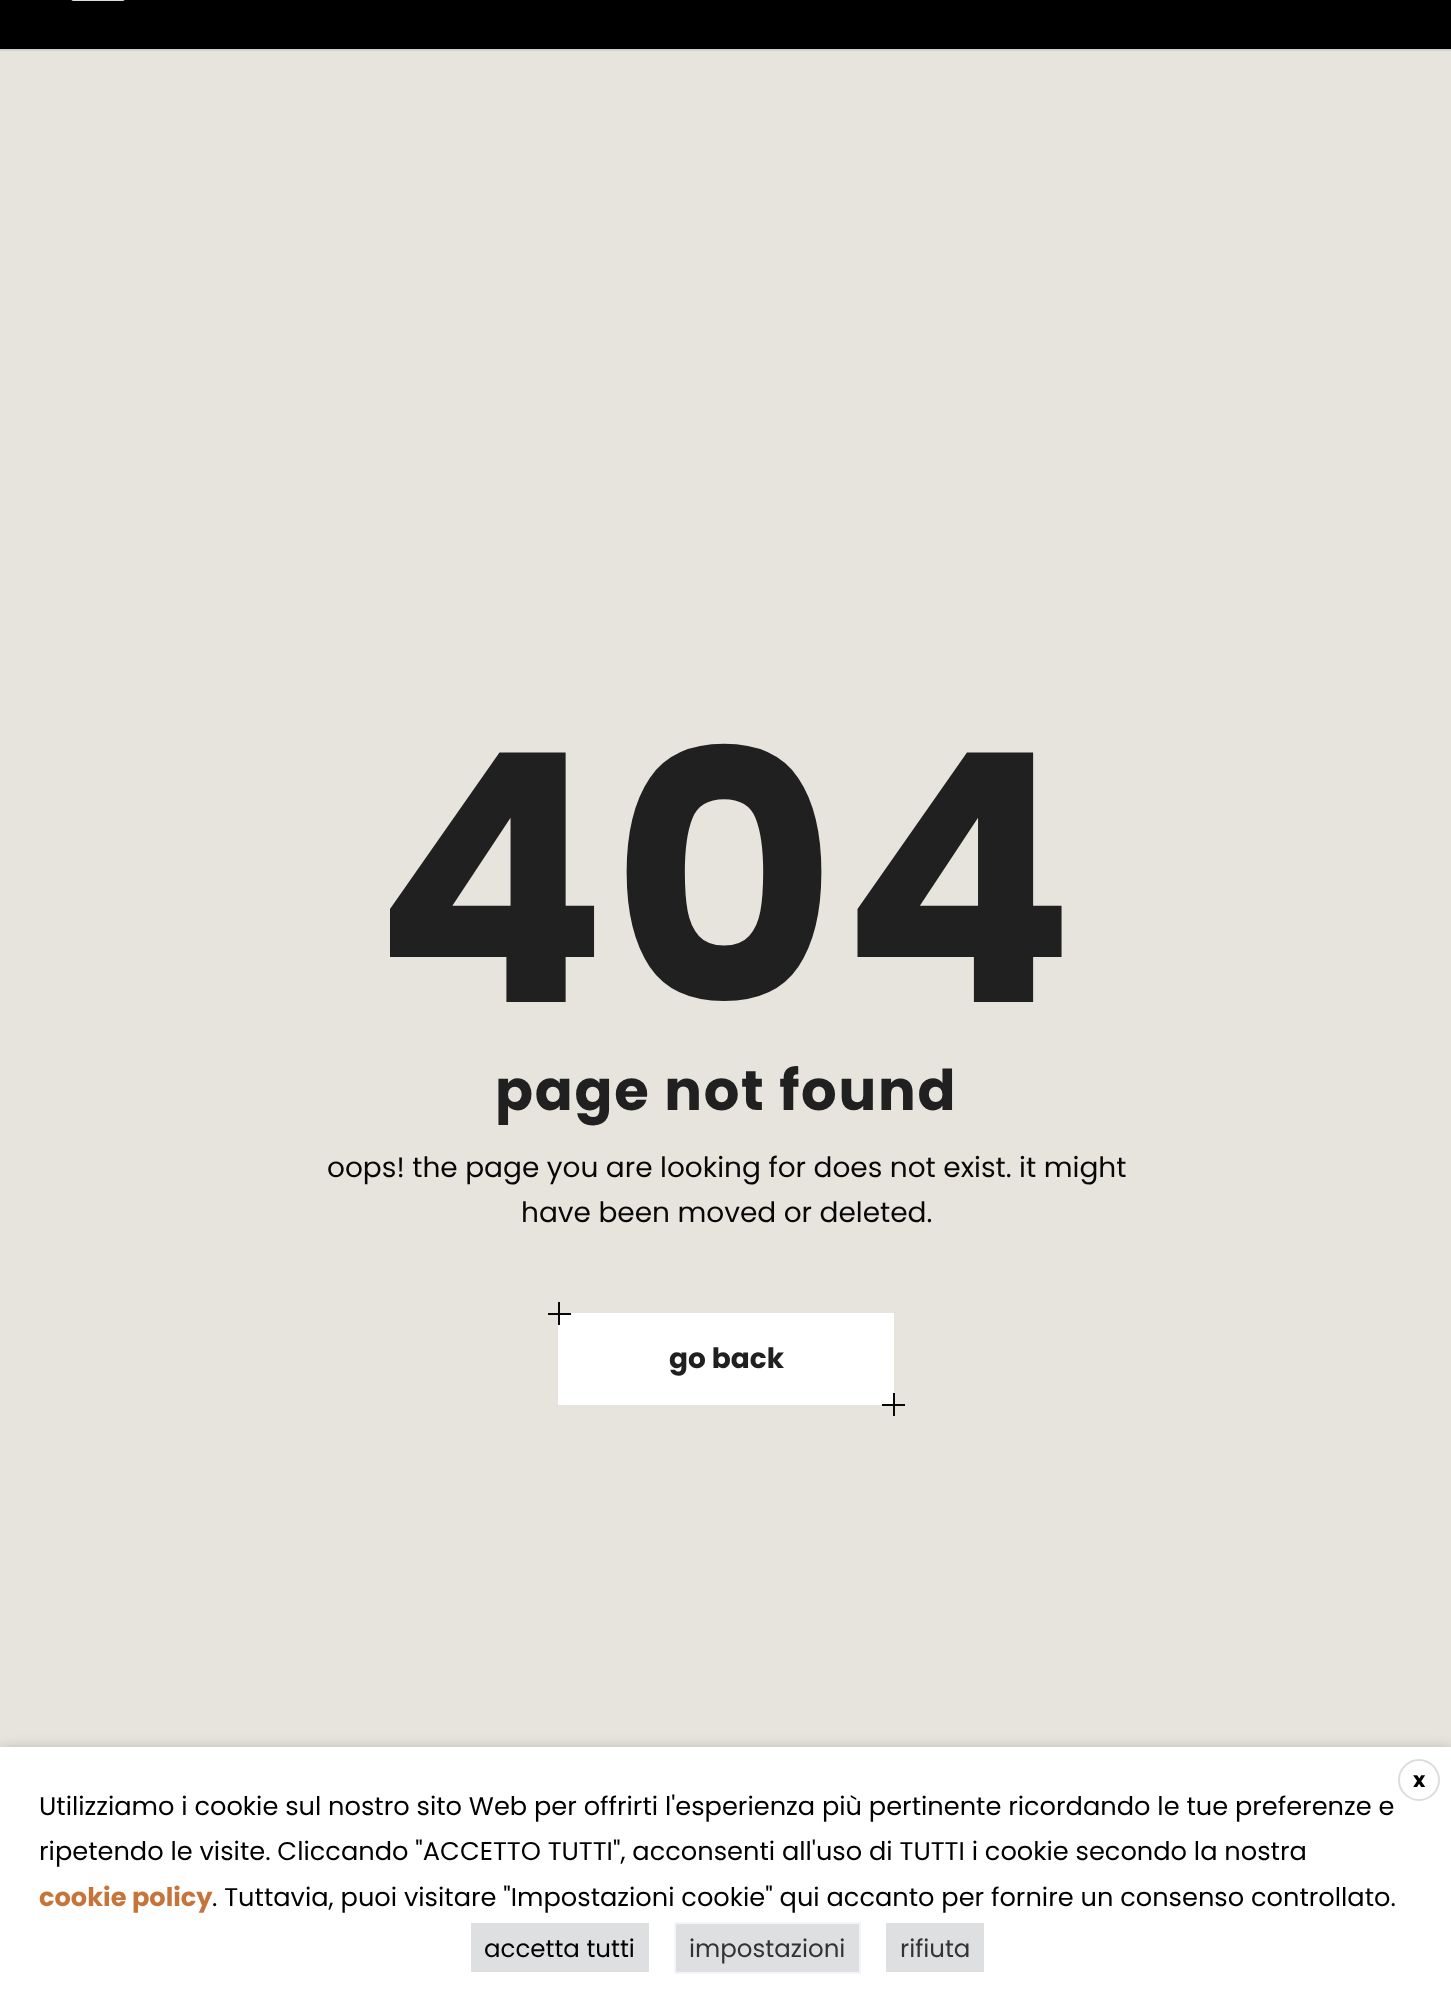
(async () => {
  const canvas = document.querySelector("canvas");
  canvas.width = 1451;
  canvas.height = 2011;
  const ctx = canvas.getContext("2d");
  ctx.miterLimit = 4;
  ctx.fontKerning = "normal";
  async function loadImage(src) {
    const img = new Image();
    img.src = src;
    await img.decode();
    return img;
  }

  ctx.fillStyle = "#e7e4dd";
  ctx.fillRect(0, 0, 1451, 2011);
  ctx.fillStyle = "#000000";
  ctx.fillRect(0, 0, 1451, 49);
  ctx.fillStyle = "#d2d2d2";
  ctx.fillRect(0, 49, 1451, 2);
  ctx.drawImage(await loadImage("img/1.png"), 71, 0, 54, 1);
  for (const [x, y, w, h, color] of [
    [558, 1313, 336, 92, "#ffffff"],
    [548, 1313, 23, 2, "#070707"],
    [558, 1302, 2, 23, "#070707"],
    [882, 1404, 23, 2, "#070707"],
    [893, 1393, 2, 23, "#070707"],
  ]) {
    ctx.fillStyle = color;
    ctx.fillRect(x, y, w, h);
  }
  ctx.fillStyle = "rgba(0, 0, 0, 0.5)";
  ctx.filter = "blur(9px)";
  ctx.beginPath();
  ctx.rect(0, 1755, 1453, 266);
  ctx.fill();
  ctx.filter = "none";
  ctx.fillStyle = "#ffffff";
  ctx.fillRect(0, 1747, 1451, 264);
  ctx.beginPath();
  ctx.arc(1419, 1780, 20, 0, Math.PI * 2);
  ctx.strokeStyle = "#dddddd";
  ctx.lineWidth = 2;
  ctx.stroke();
  ctx.fillStyle = "#dedfe0";
  ctx.fillRect(471, 1923, 178, 49);
  ctx.beginPath();
  ctx.rect(675, 1923, 185, 50);
  ctx.fill();
  ctx.strokeStyle = "#f4f4f9";
  ctx.stroke();
  ctx.fillRect(886, 1923, 98, 49);
  ctx.letterSpacing = "3.5px";
  ctx.font = "bold 346.5px Poppins";
  ctx.fillStyle = "#202020";
  ctx.fillText("404", 373, 1002);
  ctx.letterSpacing = "1.75px";
  ctx.font = "bold 56px Poppins";
  ctx.fillText("page not found", 495, 1110);
  ctx.letterSpacing = "0px";
  ctx.font = "28px Poppins";
  ctx.fillStyle = "#070707";
  ctx.fillText("oops! the page you are looking for does not exist. it might", 327, 1177);
  ctx.fillText("have been moved or deleted.", 521, 1222);
  ctx.font = "bold 28px Poppins";
  ctx.fillStyle = "#202020";
  ctx.fillText("go back", 669, 1368);
  ctx.font = "bold 21px Poppins";
  ctx.fillStyle = "#000000";
  ctx.fillText("x", 1413, 1787);
  ctx.font = "25.67px Poppins";
  ctx.fillText("Utilizziamo i cookie sul nostro sito Web per offrirti l'esperienza più pertinente ricordando le tue preferenze e", 39, 1815);
  ctx.fillText("ripetendo le visite. Cliccando \"ACCETTO TUTTI\", acconsenti all'uso di TUTTI i cookie secondo la nostra", 39, 1860);
  ctx.font = "bold 25.67px Poppins";
  ctx.fillStyle = "#c7743a";
  ctx.fillText("cookie policy", 39, 1906);
  ctx.font = "25.67px Poppins";
  ctx.fillStyle = "#000000";
  ctx.fillText(". Tuttavia, puoi visitare \"Impostazioni cookie\" qui accanto per fornire un consenso controllato.", 212, 1906);
  ctx.font = "24.5px Poppins";
  ctx.fillText("accetta tutti", 484, 1957);
  ctx.fillStyle = "#333333";
  ctx.fillText("impostazioni", 689, 1957);
  ctx.fillText("rifiuta", 900, 1957);
})();
